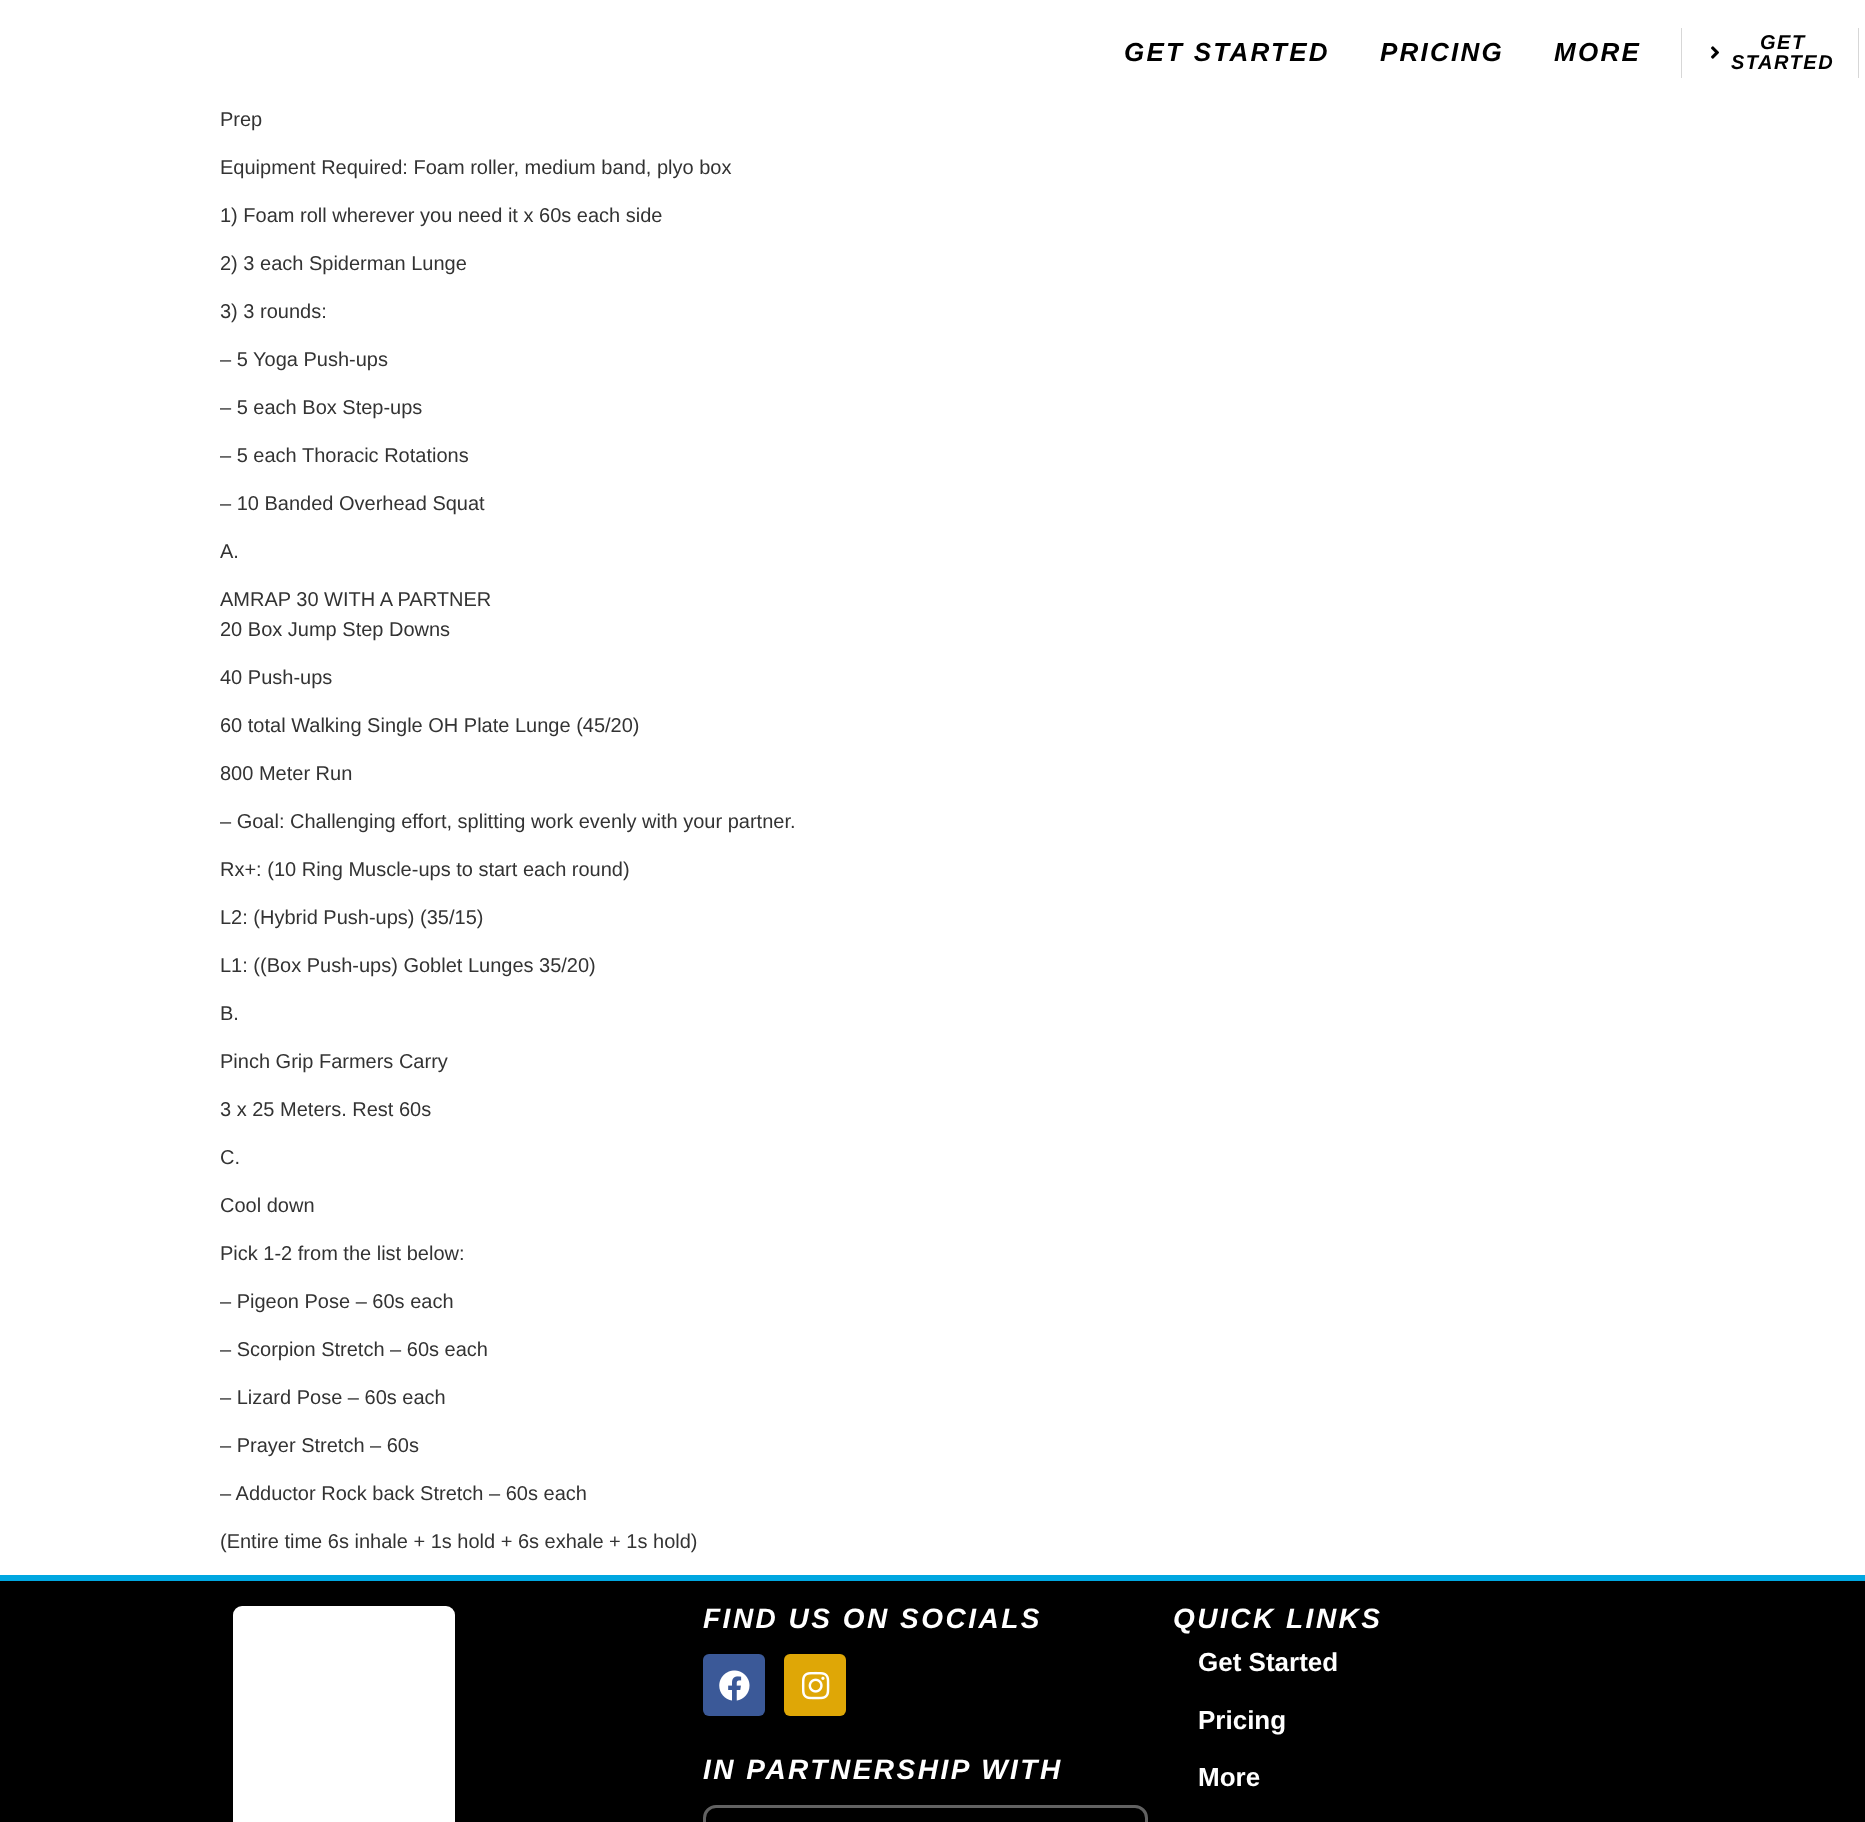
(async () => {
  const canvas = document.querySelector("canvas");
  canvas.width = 1865;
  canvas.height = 1822;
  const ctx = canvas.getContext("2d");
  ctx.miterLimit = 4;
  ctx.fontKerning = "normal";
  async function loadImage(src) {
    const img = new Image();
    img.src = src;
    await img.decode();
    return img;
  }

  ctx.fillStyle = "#ffffff";
  ctx.fillRect(0, 0, 1865, 1822);
  ctx.fillStyle = "#d7d7d7";
  ctx.fillRect(1858, 28, 1, 50);
  ctx.fillRect(1681, 28, 1, 50);
  ctx.drawImage(await loadImage("img/1.png"), 1711, 46, 8, 13);
  ctx.fillStyle = "#000000";
  ctx.fillRect(0, 1581, 1865, 241);
  ctx.fillStyle = "#00a7e1";
  ctx.fillRect(0, 1575, 1865, 6);
  ctx.fillStyle = "#ffffff";
  ctx.beginPath();
  ctx.roundRect(233, 1606, 222, 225, 9);
  ctx.fill();
  ctx.fillStyle = "#3b5998";
  ctx.beginPath();
  ctx.roundRect(703, 1654, 62, 62, 6);
  ctx.fill();
  ctx.drawImage(await loadImage("img/2.png"), 719, 1670, 31, 31);
  ctx.fillStyle = "#dfa706";
  ctx.beginPath();
  ctx.roundRect(784, 1654, 62, 62, 6);
  ctx.fill();
  ctx.drawImage(await loadImage("img/3.png"), 801, 1671, 29, 29);
  ctx.beginPath();
  ctx.roundRect(704.5, 1806.5, 442, 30, 11.5);
  ctx.strokeStyle = "#626262";
  ctx.lineWidth = 3;
  ctx.stroke();
  ctx.letterSpacing = "2.25px";
  ctx.font = "italic bold 26px Liberation Sans";
  ctx.fillStyle = "#000000";
  for (const [text, x, y] of [
    ["GET STARTED", 1124, 61],
    ["PRICING", 1380, 61],
    ["MORE", 1554, 61],
  ]) {
    ctx.fillText(text, x, y);
  }
  ctx.letterSpacing = "1.5px";
  ctx.font = "italic bold 20px Liberation Sans";
  ctx.fillText("GET", 1760, 49);
  ctx.fillText("STARTED", 1731, 69);
  ctx.letterSpacing = "0px";
  ctx.font = "20px Liberation Sans";
  ctx.fillStyle = "#333333";
  for (const [text, x, y] of [
    ["Prep", 220, 126],
    ["Equipment Required: Foam roller, medium band, plyo box", 220, 174],
    ["1) Foam roll wherever you need it x 60s each side", 220, 222],
    ["2) 3 each Spiderman Lunge", 220, 270],
    ["3) 3 rounds:", 220, 318],
    ["– 5 Yoga Push-ups", 220, 366],
    ["– 5 each Box Step-ups", 220, 414],
    ["– 5 each Thoracic Rotations", 220, 462],
    ["– 10 Banded Overhead Squat", 220, 510],
    ["A.", 220, 558],
    ["AMRAP 30 WITH A PARTNER", 220, 606],
    ["20 Box Jump Step Downs", 220, 636],
    ["40 Push-ups", 220, 684],
    ["60 total Walking Single OH Plate Lunge (45/20)", 220, 732],
    ["800 Meter Run", 220, 780],
    ["– Goal: Challenging effort, splitting work evenly with your partner.", 220, 828],
    ["Rx+: (10 Ring Muscle-ups to start each round)", 220, 876],
    ["L2: (Hybrid Push-ups) (35/15)", 220, 924],
    ["L1: ((Box Push-ups) Goblet Lunges 35/20)", 220, 972],
    ["B.", 220, 1020],
    ["Pinch Grip Farmers Carry", 220, 1068],
    ["3 x 25 Meters. Rest 60s", 220, 1116],
    ["C.", 220, 1164],
    ["Cool down", 220, 1212],
    ["Pick 1-2 from the list below:", 220, 1260],
    ["– Pigeon Pose – 60s each", 220, 1308],
    ["– Scorpion Stretch – 60s each", 220, 1356],
    ["– Lizard Pose – 60s each", 220, 1404],
    ["– Prayer Stretch – 60s", 220, 1452],
    ["– Adductor Rock back Stretch – 60s each", 220, 1500],
    ["(Entire time 6s inhale + 1s hold + 6s exhale + 1s hold)", 220, 1548],
  ]) {
    ctx.fillText(text, x, y);
  }
  ctx.letterSpacing = "2.5px";
  ctx.font = "italic bold 28px Liberation Sans";
  ctx.fillStyle = "#ffffff";
  for (const [text, x, y] of [
    ["FIND US ON SOCIALS", 703, 1628],
    ["IN PARTNERSHIP WITH", 703, 1779],
    ["QUICK LINKS", 1173, 1628],
  ]) {
    ctx.fillText(text, x, y);
  }
  ctx.letterSpacing = "0px";
  ctx.font = "bold 26px Liberation Sans";
  for (const [text, x, y] of [
    ["Get Started", 1198, 1671],
    ["Pricing", 1198, 1729],
    ["More", 1198, 1786],
  ]) {
    ctx.fillText(text, x, y);
  }
})();
